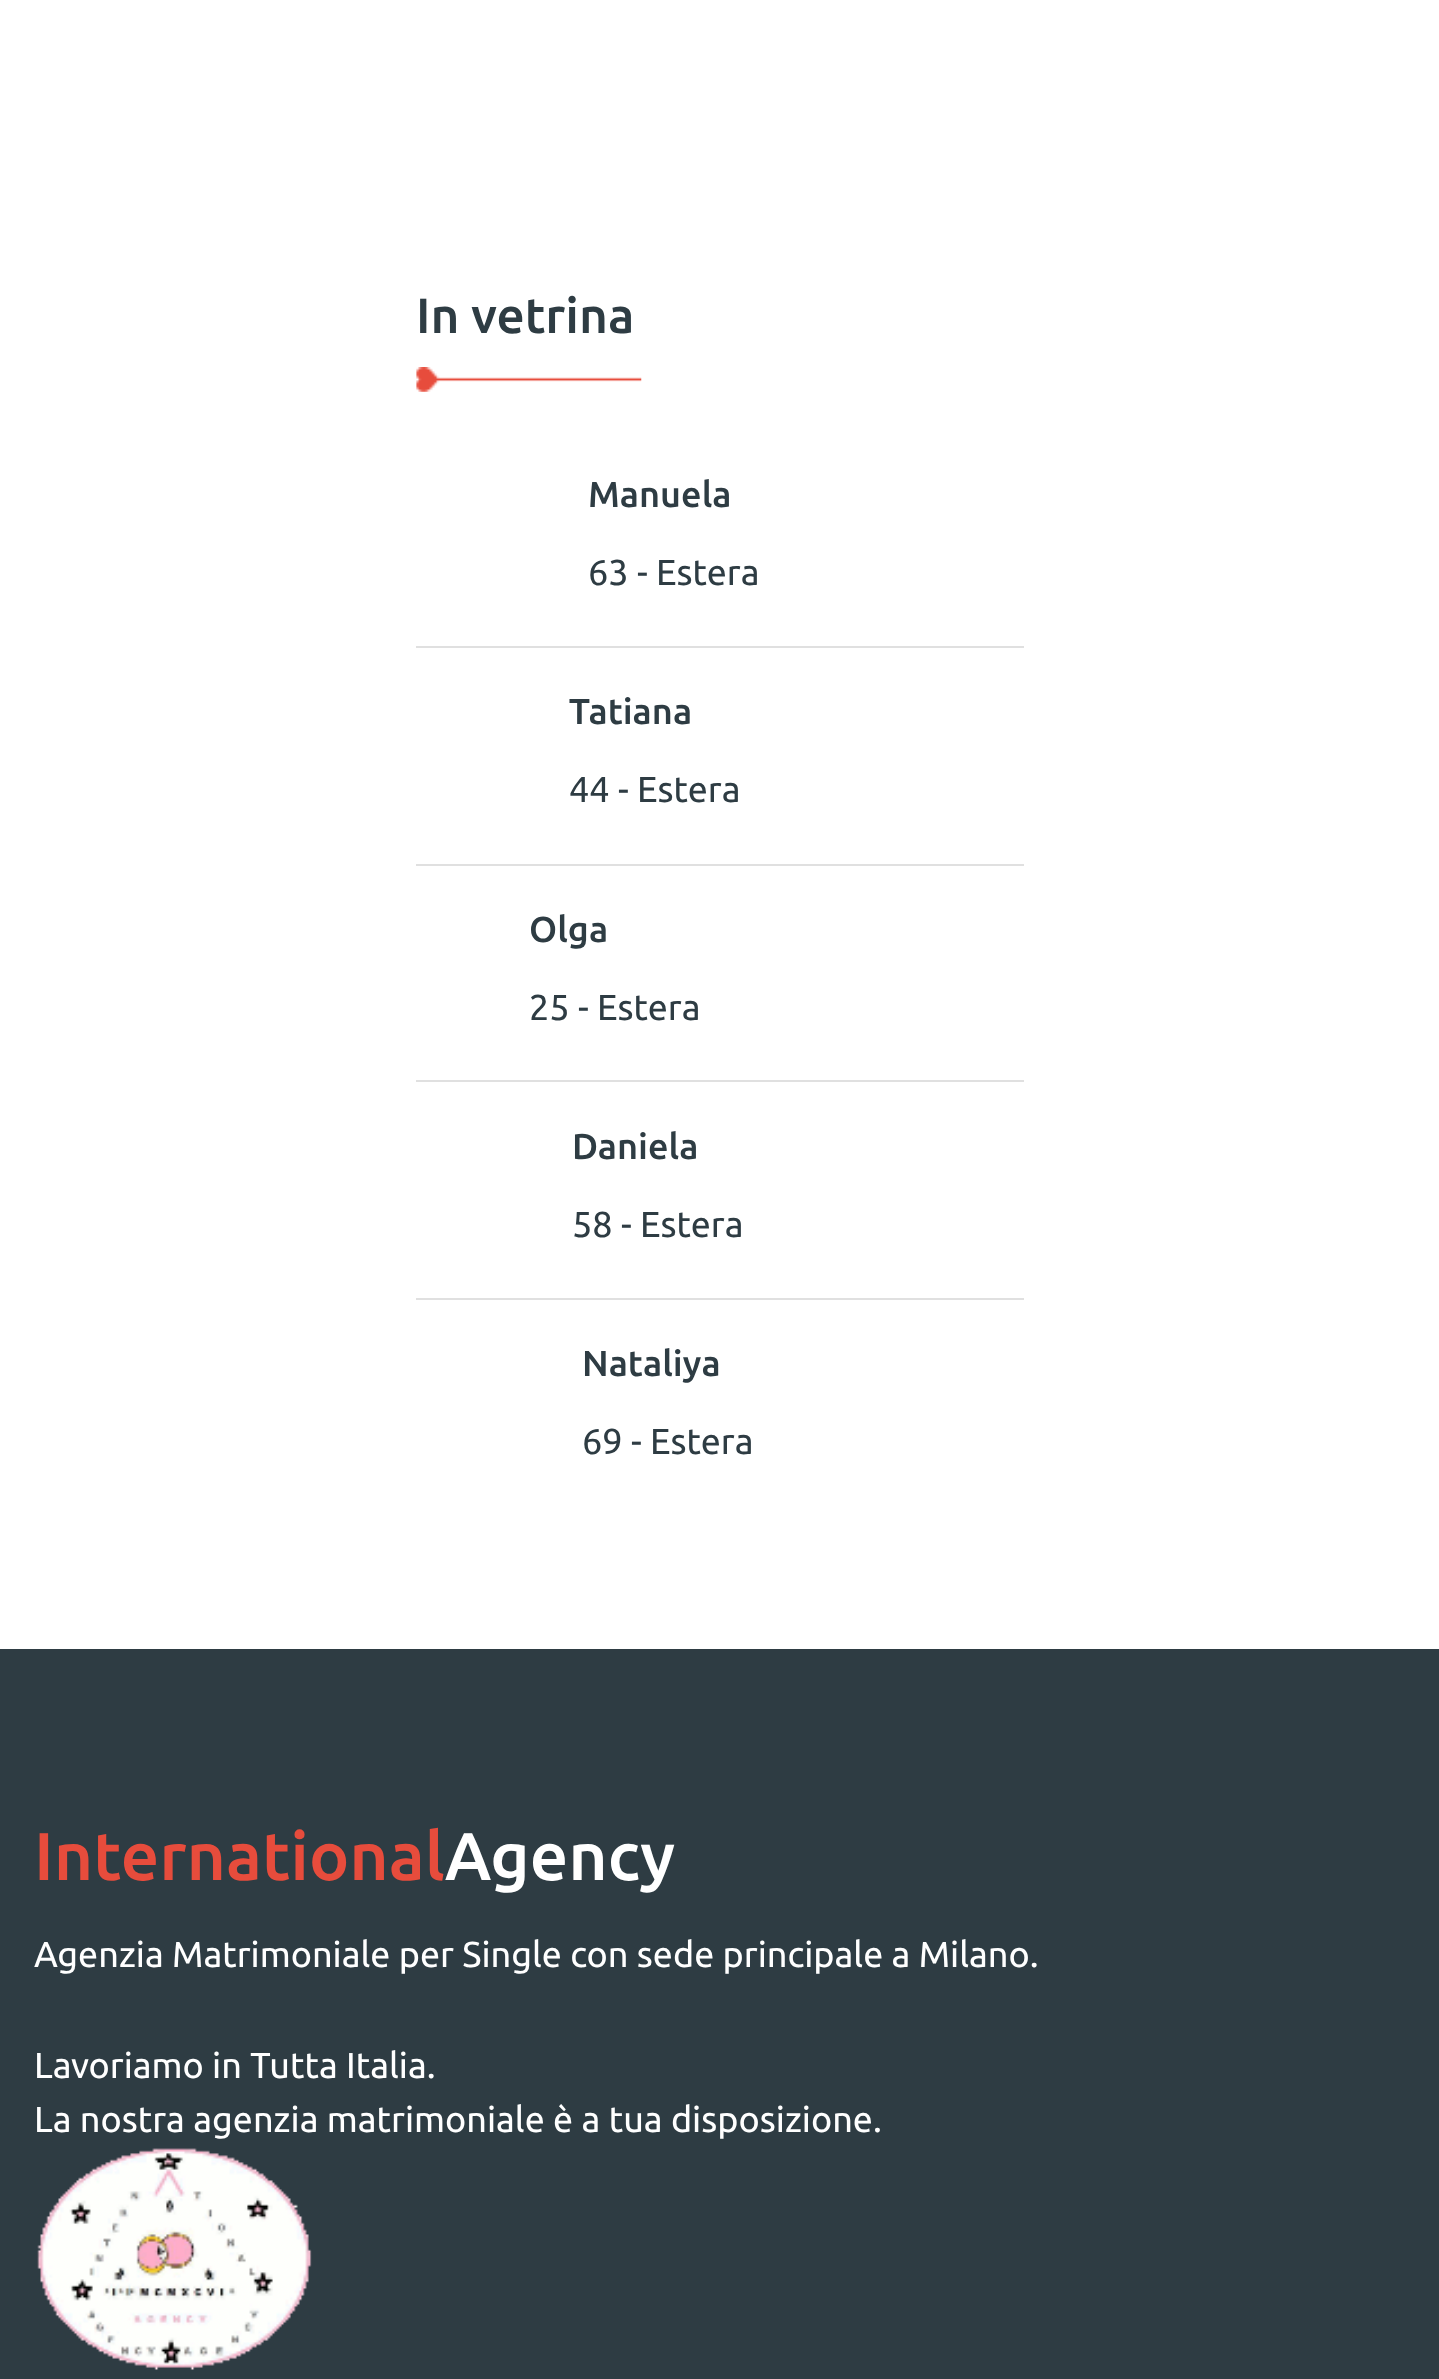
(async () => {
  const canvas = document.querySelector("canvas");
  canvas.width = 1439;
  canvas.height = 2379;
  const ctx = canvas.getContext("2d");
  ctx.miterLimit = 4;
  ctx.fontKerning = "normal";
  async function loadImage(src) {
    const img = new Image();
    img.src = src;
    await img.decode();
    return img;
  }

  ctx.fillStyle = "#ffffff";
  ctx.fillRect(0, 0, 1439, 2379);
  ctx.drawImage(await loadImage("img/1.png"), 416, 367, 226, 25);
  for (const [x, y, w, h, color] of [
    [416, 646, 608, 2, "#e0e0e0"],
    [416, 864, 608, 2, "#e0e0e0"],
    [416, 1080, 608, 2, "#e0e0e0"],
    [416, 1298, 608, 2, "#e0e0e0"],
    [0, 1649, 1439, 730, "#2e3c43"],
  ]) {
    ctx.fillStyle = color;
    ctx.fillRect(x, y, w, h);
  }
  ctx.drawImage(await loadImage("img/2.png"), 37, 2148, 275, 222);
  ctx.font = "500 49.5px Ubuntu";
  ctx.fillText("In vetrina", 416, 333);
  ctx.font = "500 36px Ubuntu";
  ctx.fillText("Manuela", 588, 507);
  ctx.font = "36px Ubuntu";
  ctx.fillText("63 - Estera", 588, 585);
  ctx.font = "500 36px Ubuntu";
  ctx.fillText("Tatiana", 569, 724);
  ctx.font = "36px Ubuntu";
  ctx.fillText("44 - Estera", 569, 802);
  ctx.font = "500 36px Ubuntu";
  ctx.fillText("Olga", 529, 942);
  ctx.font = "36px Ubuntu";
  ctx.fillText("25 - Estera", 529, 1020);
  ctx.font = "500 36px Ubuntu";
  ctx.fillText("Daniela", 572, 1159);
  ctx.font = "36px Ubuntu";
  ctx.fillText("58 - Estera", 572, 1237);
  ctx.font = "500 36px Ubuntu";
  ctx.fillText("Nataliya", 582, 1376);
  ctx.font = "36px Ubuntu";
  ctx.fillText("69 - Estera", 582, 1454);
  ctx.font = "500 67.5px Ubuntu";
  ctx.fillStyle = "#e74c3c";
  ctx.fillText("International", 34, 1880);
  ctx.fillStyle = "#ffffff";
  ctx.fillText("Agency", 445, 1880);
  ctx.font = "36px Ubuntu";
  for (const [text, x, y] of [
    ["Agenzia Matrimoniale per Single con sede principale a Milano.", 34, 1967],
    ["Lavoriamo in Tutta Italia.", 34, 2078],
    ["La nostra agenzia matrimoniale è a tua disposizione.", 34, 2132],
  ]) {
    ctx.fillText(text, x, y);
  }
})();
